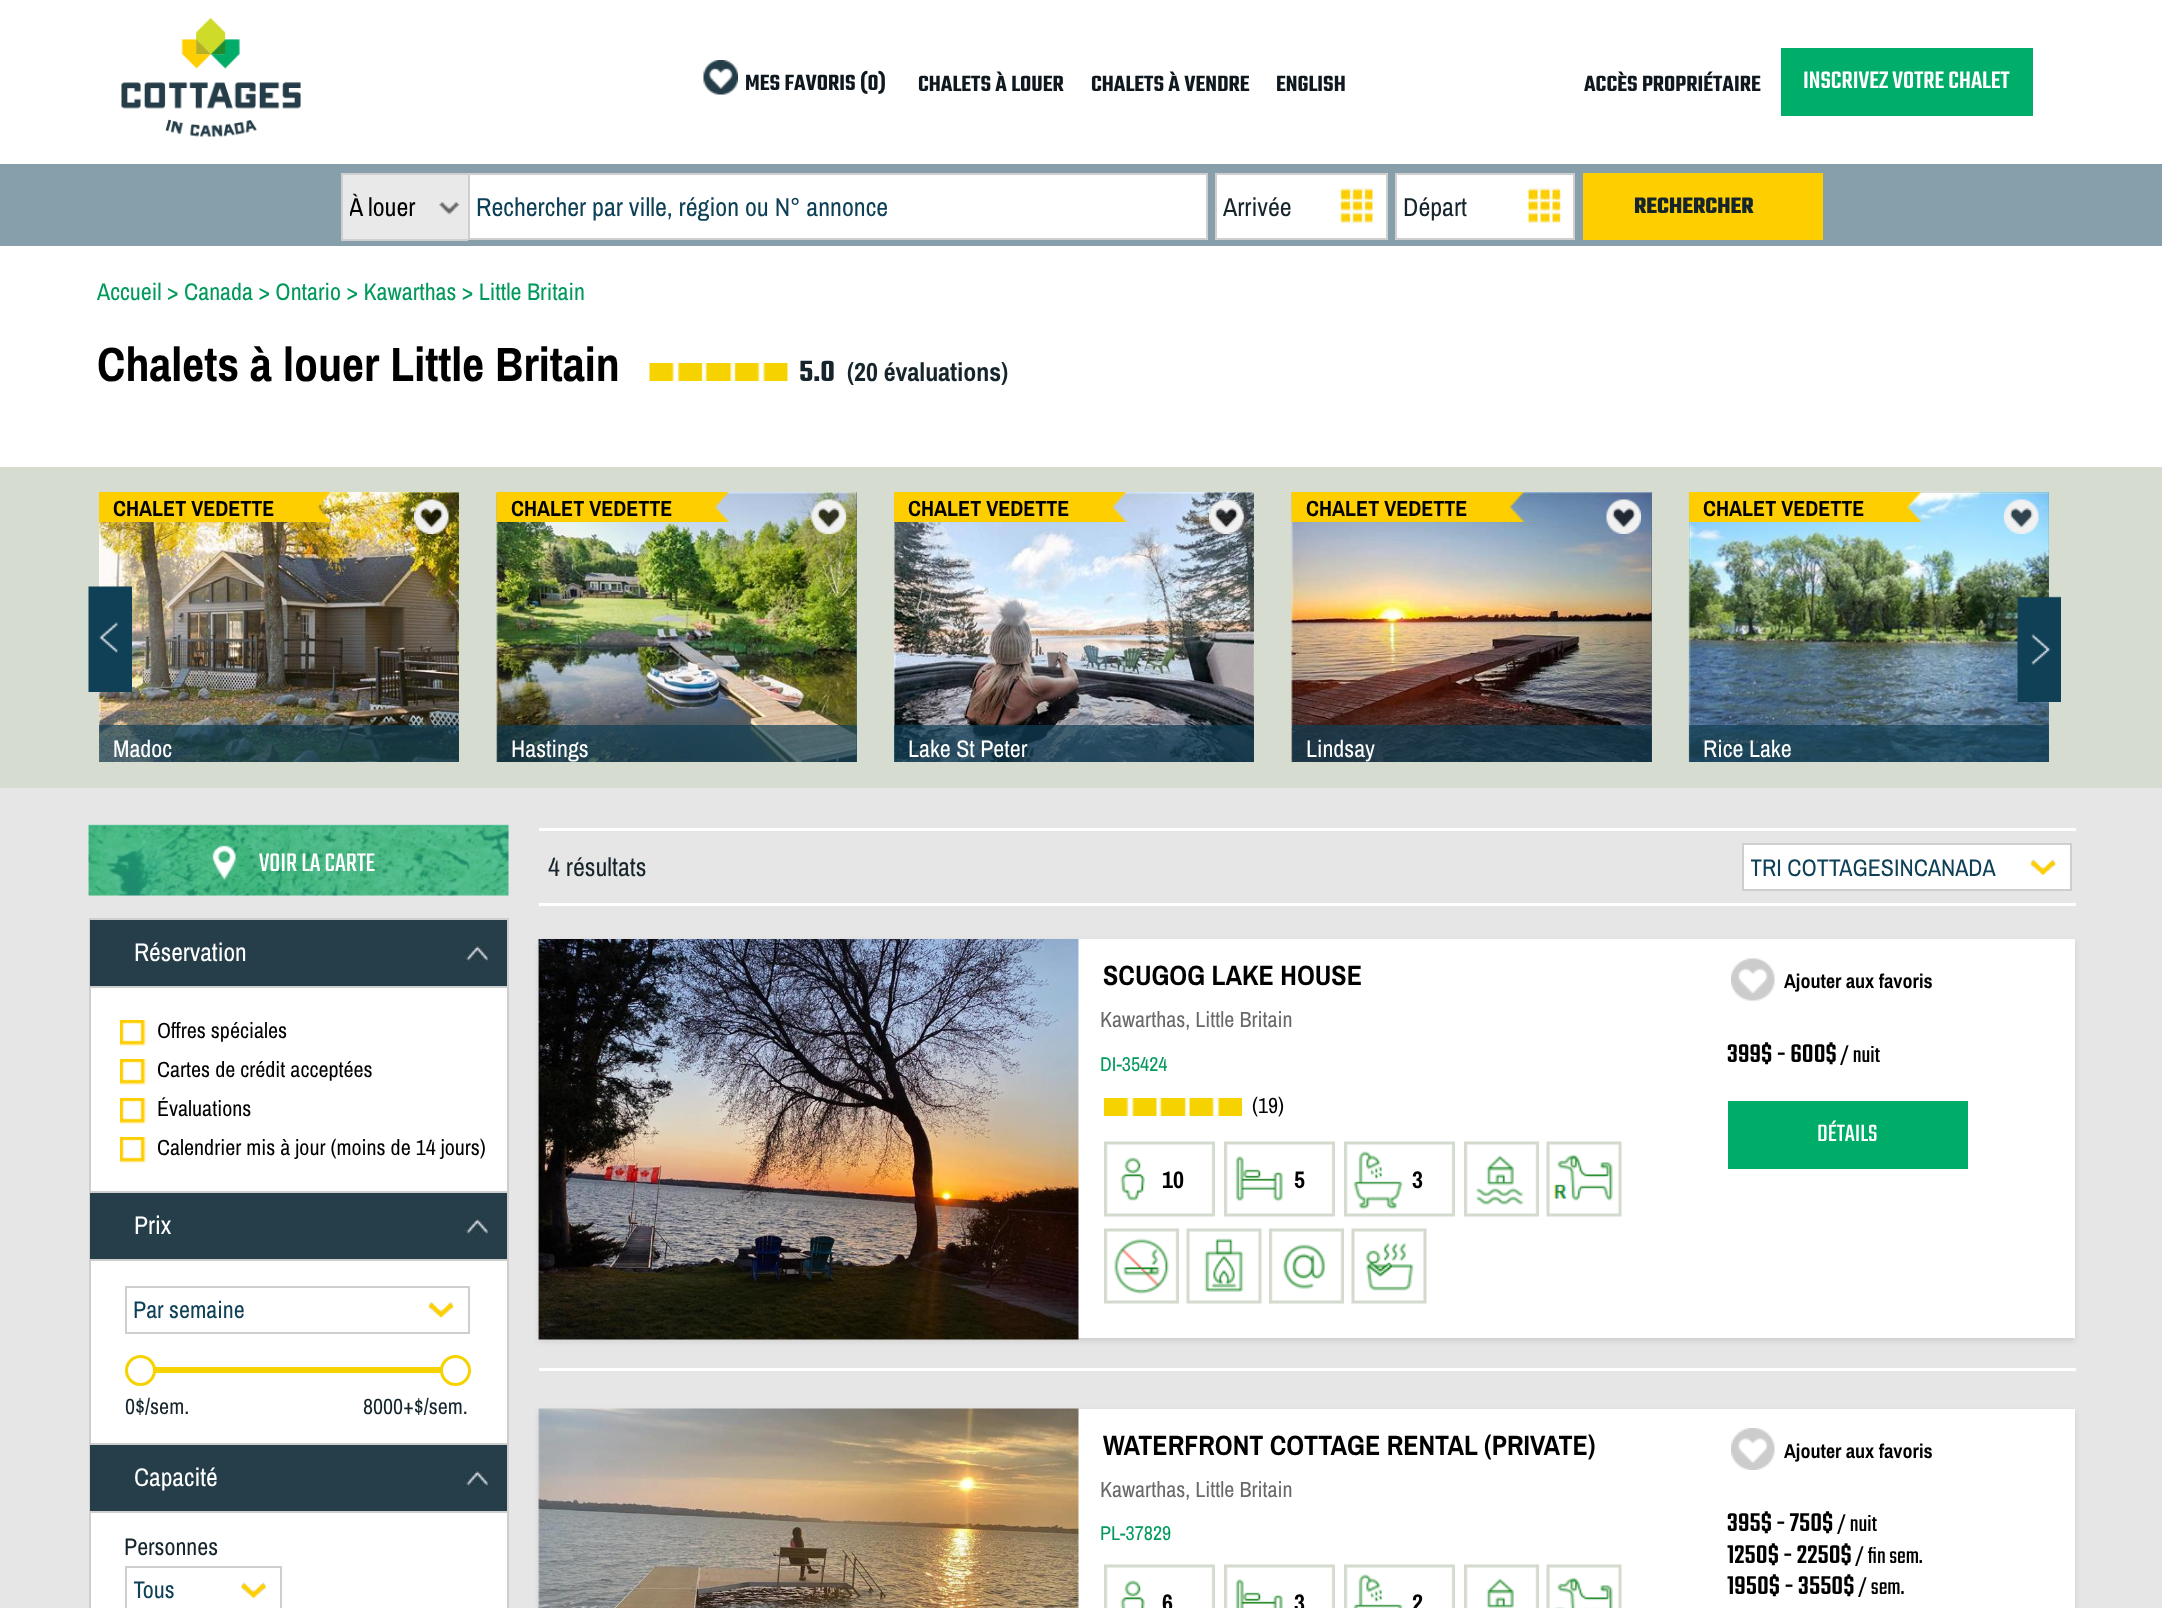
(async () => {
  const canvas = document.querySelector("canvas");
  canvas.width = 2162;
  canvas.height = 1608;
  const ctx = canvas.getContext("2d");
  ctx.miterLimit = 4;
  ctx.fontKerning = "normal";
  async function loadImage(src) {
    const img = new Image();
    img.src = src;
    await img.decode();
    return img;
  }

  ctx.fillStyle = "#ffffff";
  ctx.fillRect(0, 0, 2162, 1608);
  ctx.drawImage(await loadImage("img/1.png"), 121, 18, 180, 119);
  ctx.drawImage(await loadImage("img/2.png"), 703, 60, 35, 35);
  for (const [x, y, w, h, color] of [
    [1781, 48, 252, 68, "#00ae69"],
    [0, 164, 2162, 82, "#879fab"],
    [343, 175, 125, 64, "#e9e9e9"],
  ]) {
    ctx.fillStyle = color;
    ctx.fillRect(x, y, w, h);
  }
  ctx.drawImage(await loadImage("img/3.png"), 439, 202, 21, 13);
  for (const [x, y, w, h, color] of [
    [341, 173, 127, 2, "#cfcfcf"],
    [341, 239, 127, 2, "#cfcfcf"],
    [341, 173, 2, 67, "#cfcfcf"],
  ]) {
    ctx.fillStyle = color;
    ctx.fillRect(x, y, w, h);
  }
  ctx.fillStyle = "#ffffff";
  ctx.beginPath();
  ctx.rect(469, 174, 738, 65);
  ctx.fill();
  ctx.strokeStyle = "#cfcfcf";
  ctx.lineWidth = 2;
  ctx.stroke();
  ctx.fillRect(1217, 175, 169, 63);
  ctx.drawImage(await loadImage("img/4.png"), 1340, 187, 33, 37);
  ctx.strokeRect(1216, 174, 171, 65);
  ctx.fillRect(1397, 175, 176, 63);
  ctx.drawImage(await loadImage("img/5.png"), 1528, 187, 33, 37);
  ctx.strokeRect(1396, 174, 178, 65);
  ctx.fillStyle = "#fdcf00";
  ctx.fillRect(1583, 173, 240, 67);
  ctx.drawImage(await loadImage("img/6.png"), 649, 363, 139, 18);
  ctx.fillStyle = "#d6dcd0";
  ctx.fillRect(0, 467, 2162, 321);
  ctx.drawImage(await loadImage("img/8.png"), 99, 492, 360, 270);
  ctx.drawImage(await loadImage("img/7.png"), 88, 586, 44, 106);
  ctx.drawImage(await loadImage("img/9.png"), 99, 492, 233, 30);
  ctx.drawImage(await loadImage("img/10.png"), 414, 499, 35, 35);
  ctx.fillStyle = "rgba(15, 63, 86, 0.7)";
  ctx.fillRect(99, 725, 360, 37);
  ctx.fillStyle = "#4b6e7b";
  ctx.fillRect(856, 492, 1, 270);
  ctx.drawImage(await loadImage("img/11.png"), 496, 492, 361, 270);
  ctx.drawImage(await loadImage("img/12.png"), 496, 492, 233, 30);
  ctx.drawImage(await loadImage("img/13.png"), 811, 499, 35, 35);
  ctx.fillStyle = "rgba(15, 63, 86, 0.7)";
  ctx.fillRect(497, 725, 360, 37);
  ctx.drawImage(await loadImage("img/14.png"), 894, 492, 360, 270);
  ctx.drawImage(await loadImage("img/15.png"), 894, 492, 233, 30);
  ctx.drawImage(await loadImage("img/16.png"), 1209, 499, 35, 35);
  ctx.fillRect(894, 725, 360, 37);
  ctx.fillStyle = "#4b6e7b";
  ctx.fillRect(1651, 492, 1, 270);
  ctx.drawImage(await loadImage("img/17.png"), 1291, 492, 361, 270);
  ctx.drawImage(await loadImage("img/18.png"), 1291, 492, 233, 30);
  ctx.drawImage(await loadImage("img/19.png"), 1606, 499, 35, 35);
  ctx.fillStyle = "rgba(15, 63, 86, 0.7)";
  ctx.fillRect(1292, 725, 360, 37);
  ctx.fillStyle = "#4b6e7b";
  ctx.fillRect(1689, 492, 360, 270);
  ctx.drawImage(await loadImage("img/20.png"), 1688, 491, 361, 271);
  ctx.drawImage(await loadImage("img/21.png"), 1689, 492, 233, 30);
  ctx.drawImage(await loadImage("img/22.png"), 2004, 499, 35, 35);
  ctx.drawImage(await loadImage("img/23.png"), 2017, 596, 44, 106);
  for (const [x, y, w, h, color] of [
    [1689, 725, 360, 37, "rgba(15, 63, 86, 0.7)"],
    [0, 788, 2162, 820, "#e6e6e6"],
    [91, 988, 416, 620, "#ffffff"],
  ]) {
    ctx.fillStyle = color;
    ctx.fillRect(x, y, w, h);
  }
  ctx.drawImage(await loadImage("img/24.png"), 88, 824, 421, 72);
  ctx.drawImage(await loadImage("img/25.png"), 212, 845, 24, 35);
  ctx.strokeStyle = "#cecece";
  ctx.strokeRect(90, 919, 418, 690);
  ctx.fillStyle = "#263e4a";
  ctx.fillRect(90, 920, 417, 66);
  ctx.fillStyle = "#cecece";
  ctx.fillRect(90, 986, 417, 2);
  ctx.drawImage(await loadImage("img/26.png"), 463, 942, 28, 21);
  ctx.drawImage(await loadImage("img/27.png"), 120, 1020, 26, 26);
  ctx.drawImage(await loadImage("img/27.png"), 120, 1059, 26, 26);
  ctx.drawImage(await loadImage("img/27.png"), 120, 1098, 26, 26);
  ctx.drawImage(await loadImage("img/27.png"), 120, 1137, 26, 26);
  for (const [x, y, w, h, color] of [
    [90, 1191, 417, 2, "#cecece"],
    [90, 1193, 417, 66, "#263e4a"],
    [90, 1259, 417, 2, "#cecece"],
  ]) {
    ctx.fillStyle = color;
    ctx.fillRect(x, y, w, h);
  }
  ctx.drawImage(await loadImage("img/26.png"), 463, 1215, 28, 21);
  ctx.drawImage(await loadImage("img/28.png"), 428, 1301, 26, 17);
  ctx.strokeStyle = "#cfcfcf";
  ctx.strokeRect(126, 1287, 343, 46);
  ctx.fillStyle = "#f6d300";
  ctx.fillRect(155, 1367, 286, 6);
  ctx.fillStyle = "#ffffff";
  ctx.beginPath();
  ctx.arc(140.5, 1370.5, 14, 0, Math.PI * 2);
  ctx.fill();
  ctx.strokeStyle = "#f6d300";
  ctx.lineWidth = 3;
  ctx.stroke();
  ctx.beginPath();
  ctx.arc(455.5, 1370.5, 14, 0, Math.PI * 2);
  ctx.fill();
  ctx.stroke();
  for (const [x, y, w, h, color] of [
    [90, 1443, 417, 2, "#cecece"],
    [90, 1445, 417, 66, "#263e4a"],
    [90, 1511, 417, 2, "#cecece"],
  ]) {
    ctx.fillStyle = color;
    ctx.fillRect(x, y, w, h);
  }
  ctx.drawImage(await loadImage("img/26.png"), 463, 1467, 28, 21);
  ctx.drawImage(await loadImage("img/29.png"), 241, 1582, 25, 16);
  ctx.strokeStyle = "#cfcfcf";
  ctx.lineWidth = 2;
  ctx.strokeRect(126, 1567, 155, 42);
  ctx.fillStyle = "#ffffff";
  ctx.fillRect(539, 828, 1537, 3);
  ctx.fillRect(1744, 845, 326, 44);
  ctx.drawImage(await loadImage("img/30.png"), 2030, 859, 26, 16);
  ctx.strokeRect(1743, 844, 328, 46);
  ctx.fillRect(539, 903, 1537, 3);
  ctx.fillStyle = "rgba(0, 0, 0, 0.1)";
  ctx.filter = "blur(3px)";
  ctx.beginPath();
  ctx.rect(539, 942, 1536, 399);
  ctx.fill();
  ctx.filter = "none";
  ctx.fillStyle = "#ffffff";
  ctx.fillRect(1078, 939, 997, 399);
  ctx.drawImage(await loadImage("img/31.png"), 538, 939, 541, 401);
  ctx.drawImage(await loadImage("img/32.png"), 1104, 1098, 138, 18);
  ctx.drawImage(await loadImage("img/33.png"), 1104, 1141, 111, 76);
  ctx.drawImage(await loadImage("img/34.png"), 1224, 1141, 111, 76);
  ctx.drawImage(await loadImage("img/35.png"), 1344, 1141, 111, 76);
  ctx.drawImage(await loadImage("img/36.png"), 1464, 1141, 75, 76);
  ctx.drawImage(await loadImage("img/37.png"), 1546, 1141, 76, 76);
  ctx.drawImage(await loadImage("img/38.png"), 1104, 1228, 75, 76);
  ctx.drawImage(await loadImage("img/39.png"), 1186, 1228, 76, 76);
  ctx.drawImage(await loadImage("img/40.png"), 1269, 1228, 75, 76);
  ctx.drawImage(await loadImage("img/41.png"), 1351, 1228, 76, 76);
  ctx.drawImage(await loadImage("img/42.png"), 1731, 958, 44, 43);
  ctx.fillStyle = "#00ad68";
  ctx.fillRect(1728, 1101, 240, 68);
  ctx.fillStyle = "#ffffff";
  ctx.fillRect(539, 1368, 1537, 3);
  ctx.fillStyle = "rgba(0, 0, 0, 0.1)";
  ctx.filter = "blur(3px)";
  ctx.beginPath();
  ctx.rect(539, 1412, 1536, 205);
  ctx.fill();
  ctx.filter = "none";
  ctx.fillStyle = "#ffffff";
  ctx.fillRect(1078, 1409, 997, 199);
  ctx.drawImage(await loadImage("img/43.png"), 538, 1408, 541, 200);
  ctx.drawImage(await loadImage("img/44.png"), 1104, 1564, 111, 44);
  ctx.drawImage(await loadImage("img/45.png"), 1224, 1564, 111, 44);
  ctx.drawImage(await loadImage("img/46.png"), 1344, 1564, 111, 44);
  ctx.drawImage(await loadImage("img/47.png"), 1464, 1564, 75, 44);
  ctx.drawImage(await loadImage("img/48.png"), 1546, 1564, 76, 44);
  ctx.drawImage(await loadImage("img/49.png"), 1731, 1428, 44, 42);
  ctx.font = "600 24px Teko";
  ctx.fillStyle = "#0f181e";
  for (const [text, x, y] of [
    ["MES FAVORIS (0)", 745, 90],
    ["CHALETS À LOUER", 918, 91],
    ["CHALETS À VENDRE", 1091, 91],
    ["ENGLISH", 1276, 91],
    ["ACCÈS PROPRIÉTAIRE", 1584, 91],
  ]) {
    ctx.fillText(text, x, y);
  }
  ctx.font = "500 26px Teko";
  ctx.fillStyle = "#ffffff";
  ctx.fillText("INSCRIVEZ VOTRE CHALET", 1803, 88);
  ctx.save();
  ctx.beginPath();
  ctx.rect(350, 177, 85, 59);
  ctx.clip();
  ctx.font = "26px Archivo Narrow";
  ctx.fillStyle = "#000000";
  ctx.fillText("À louer", 349, 216);
  ctx.restore();
  ctx.font = "26px Archivo Narrow";
  ctx.fillStyle = "#0e4057";
  ctx.fillText("Rechercher par ville, région ou N° annonce", 476, 216);
  ctx.fillStyle = "#16242c";
  ctx.fillText("Arrivée", 1223, 216);
  ctx.fillText("Départ", 1403, 216);
  ctx.font = "bold 24px Teko";
  ctx.fillText("RECHERCHER", 1634, 213);
  ctx.font = "24px Archivo Narrow";
  ctx.fillStyle = "#02995c";
  ctx.fillText("Accueil > Canada > Ontario > Kawarthas > Little Britain", 97, 300);
  ctx.font = "bold 48px Archivo Narrow";
  ctx.fillStyle = "#000000";
  ctx.fillText("Chalets à louer Little Britain", 97, 381);
  ctx.font = "600 32px Teko";
  ctx.fillStyle = "#16242c";
  ctx.fillText("5.0", 799, 381);
  ctx.font = "bold 26px Archivo Narrow";
  ctx.fillText("(20 évaluations)", 847, 381);
  ctx.font = "bold 22px Archivo Narrow";
  ctx.fillStyle = "#000000";
  ctx.fillText("CHALET VEDETTE", 113, 516);
  ctx.font = "24px Archivo Narrow";
  ctx.fillStyle = "#ffffff";
  ctx.fillText("Madoc", 113, 757);
  ctx.font = "bold 22px Archivo Narrow";
  ctx.fillStyle = "#000000";
  ctx.fillText("CHALET VEDETTE", 511, 516);
  ctx.font = "24px Archivo Narrow";
  ctx.fillStyle = "#ffffff";
  ctx.fillText("Hastings", 511, 757);
  ctx.font = "bold 22px Archivo Narrow";
  ctx.fillStyle = "#000000";
  ctx.fillText("CHALET VEDETTE", 908, 516);
  ctx.font = "24px Archivo Narrow";
  ctx.fillStyle = "#ffffff";
  ctx.fillText("Lake St Peter", 908, 757);
  ctx.font = "bold 22px Archivo Narrow";
  ctx.fillStyle = "#000000";
  ctx.fillText("CHALET VEDETTE", 1306, 516);
  ctx.font = "24px Archivo Narrow";
  ctx.fillStyle = "#ffffff";
  ctx.fillText("Lindsay", 1306, 757);
  ctx.font = "bold 22px Archivo Narrow";
  ctx.fillStyle = "#000000";
  ctx.fillText("CHALET VEDETTE", 1703, 516);
  ctx.font = "24px Archivo Narrow";
  ctx.fillStyle = "#ffffff";
  ctx.fillText("Rice Lake", 1703, 757);
  ctx.font = "28px Teko";
  ctx.fillText("VOIR LA CARTE", 259, 871);
  ctx.font = "25.5px Archivo Narrow";
  ctx.fillText("Réservation", 134, 961);
  ctx.font = "22px Archivo Narrow";
  ctx.fillStyle = "#000000";
  for (const [text, x, y] of [
    ["Offres spéciales", 157, 1038],
    ["Cartes de crédit acceptées", 157, 1077],
    ["Évaluations", 157, 1116],
    ["Calendrier mis à jour (moins de 14 jours)", 157, 1155],
  ]) {
    ctx.fillText(text, x, y);
  }
  ctx.font = "25.5px Archivo Narrow";
  ctx.fillStyle = "#ffffff";
  ctx.fillText("Prix", 134, 1234);
  ctx.font = "24px Archivo Narrow";
  ctx.fillStyle = "#0e4057";
  ctx.fillText("Par semaine", 133, 1318);
  ctx.font = "22px Archivo Narrow";
  ctx.fillStyle = "#16242c";
  ctx.fillText("0$/sem.", 125, 1414);
  ctx.fillText("8000+$/sem.", 363, 1414);
  ctx.font = "25.5px Archivo Narrow";
  ctx.fillStyle = "#ffffff";
  ctx.fillText("Capacité", 134, 1486);
  ctx.font = "24px Archivo Narrow";
  ctx.fillStyle = "#16242c";
  ctx.fillText("Personnes", 124, 1555);
  ctx.save();
  ctx.beginPath();
  ctx.rect(134, 1571, 114, 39);
  ctx.clip();
  ctx.fillStyle = "#0e4057";
  ctx.fillText("Tous", 133, 1598);
  ctx.restore();
  ctx.font = "26px Archivo Narrow";
  ctx.fillText("4 résultats", 548, 876);
  ctx.save();
  ctx.beginPath();
  ctx.rect(1751, 848, 286, 39);
  ctx.clip();
  ctx.font = "24px Archivo Narrow";
  ctx.fillStyle = "#0e4057";
  ctx.fillText("TRI COTTAGESINCANADA", 1750, 876);
  ctx.restore();
  ctx.font = "bold 28px Archivo Narrow";
  ctx.fillStyle = "#000000";
  ctx.fillText("SCUGOG LAKE HOUSE", 1103, 985);
  ctx.font = "22px Archivo Narrow";
  ctx.fillStyle = "#696969";
  ctx.fillText("Kawarthas, Little Britain", 1100, 1027);
  ctx.font = "20px Archivo Narrow";
  ctx.fillStyle = "#02995c";
  ctx.fillText("DI-35424", 1100, 1071);
  ctx.font = "22px Archivo Narrow";
  ctx.fillStyle = "#000000";
  ctx.fillText("(19)", 1252, 1113);
  ctx.font = "bold 24px Archivo Narrow";
  for (const [text, x, y] of [
    ["10", 1162, 1188],
    ["5", 1294, 1188],
    ["3", 1412, 1188],
  ]) {
    ctx.fillText(text, x, y);
  }
  ctx.font = "bold 20px Archivo Narrow";
  ctx.fillText("Ajouter aux favoris", 1784, 988);
  ctx.font = "500 28px Teko";
  ctx.fillText("399$ - 600$", 1727, 1062);
  ctx.font = "24px Teko";
  ctx.fillText("/ nuit", 1840, 1062);
  ctx.font = "26px Teko";
  ctx.fillStyle = "#ffffff";
  ctx.fillText("DÉTAILS", 1817, 1141);
  ctx.font = "bold 28px Archivo Narrow";
  ctx.fillStyle = "#000000";
  ctx.fillText("WATERFRONT COTTAGE RENTAL (PRIVATE)", 1103, 1455);
  ctx.font = "22px Archivo Narrow";
  ctx.fillStyle = "#696969";
  ctx.fillText("Kawarthas, Little Britain", 1100, 1497);
  ctx.font = "20px Archivo Narrow";
  ctx.fillStyle = "#02995c";
  ctx.fillText("PL-37829", 1100, 1540);
  ctx.font = "bold 24px Archivo Narrow";
  ctx.fillStyle = "#000000";
  for (const [text, x, y] of [
    ["6", 1162, 1611],
    ["3", 1294, 1611],
    ["2", 1412, 1611],
  ]) {
    ctx.fillText(text, x, y);
  }
  ctx.font = "bold 20px Archivo Narrow";
  ctx.fillText("Ajouter aux favoris", 1784, 1458);
  ctx.font = "500 28px Teko";
  ctx.fillText("395$ - 750$", 1727, 1531);
  ctx.font = "24px Teko";
  ctx.fillText("/ nuit", 1837, 1531);
  ctx.font = "500 28px Teko";
  ctx.fillText("1250$ - 2250$", 1727, 1563);
  ctx.font = "24px Teko";
  ctx.fillText("/ fin sem.", 1855, 1563);
  ctx.font = "500 28px Teko";
  ctx.fillText("1950$ - 3550$", 1727, 1594);
  ctx.font = "24px Teko";
  ctx.fillText("/ sem.", 1858, 1594);
})();
